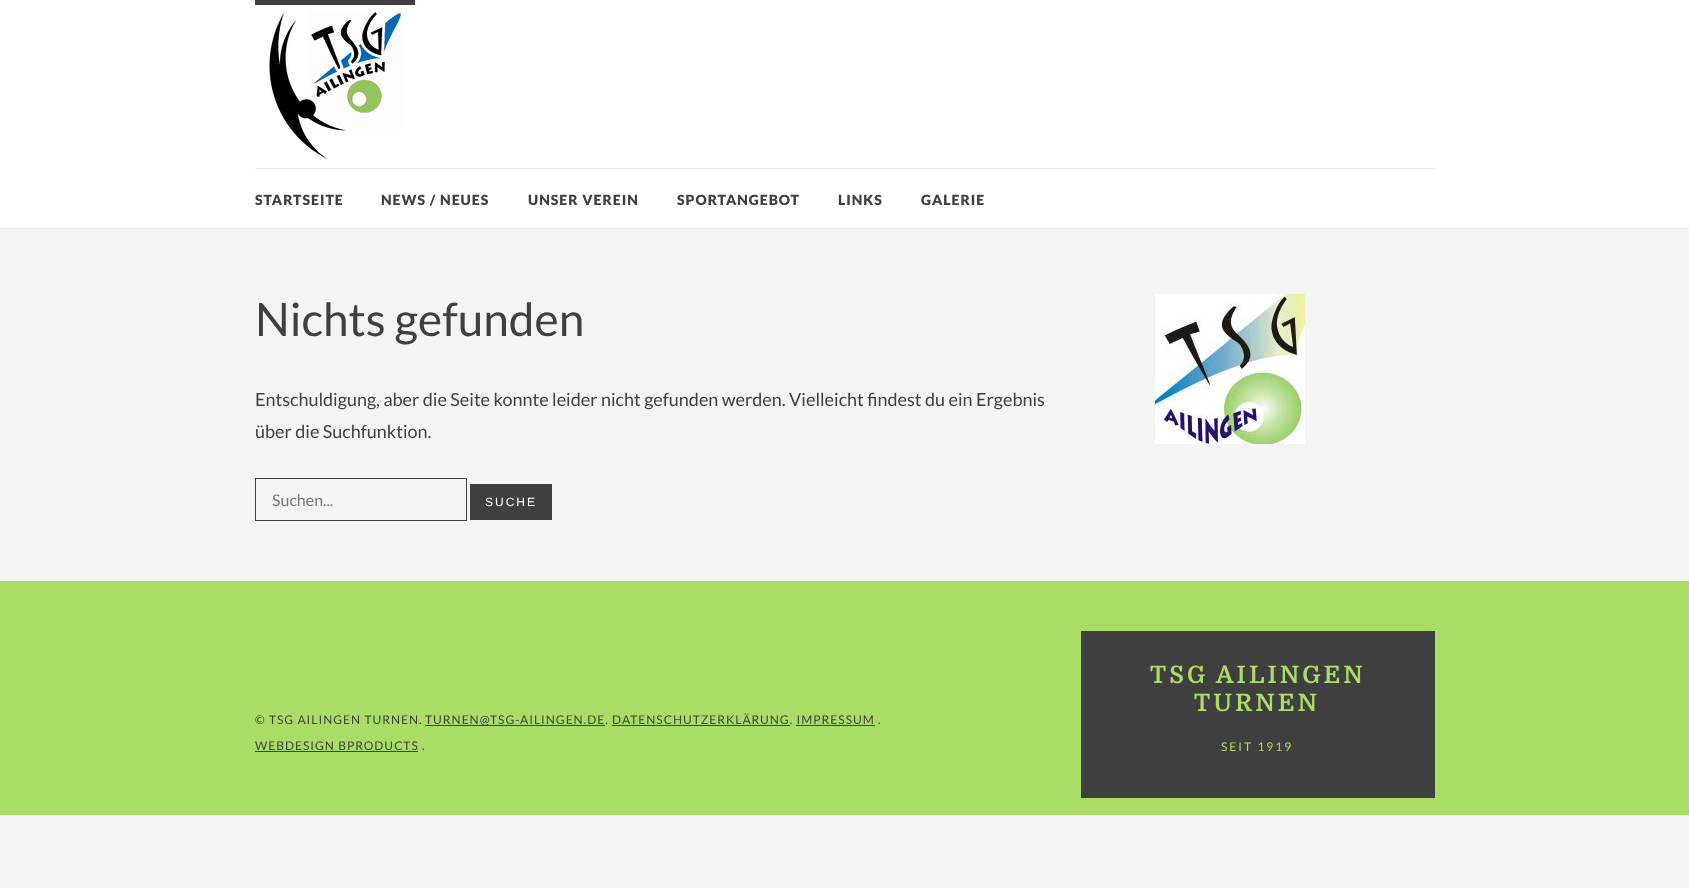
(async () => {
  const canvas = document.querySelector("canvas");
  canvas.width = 1689;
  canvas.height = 888;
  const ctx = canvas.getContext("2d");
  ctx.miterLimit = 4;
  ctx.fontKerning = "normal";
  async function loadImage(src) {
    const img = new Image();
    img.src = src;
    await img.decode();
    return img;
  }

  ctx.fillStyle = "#f4f4f4";
  ctx.fillRect(0, 0, 1689, 888);
  for (const [x, y, w, h, color] of [
    [0, 0, 1689, 228, "#ffffff"],
    [0, 228, 1689, 1, "#eaeaea"],
    [255, 0, 160, 5, "#3f3f3f"],
  ]) {
    ctx.fillStyle = color;
    ctx.fillRect(x, y, w, h);
  }
  ctx.drawImage(await loadImage("img/1.png"), 269, 11, 134, 148);
  ctx.fillStyle = "#eaeaea";
  ctx.fillRect(255, 168, 1180, 1);
  ctx.strokeStyle = "#3f3f3f";
  ctx.strokeRect(255.5, 478.5, 211, 42);
  ctx.fillStyle = "#3f3f3f";
  ctx.fillRect(470, 484, 82, 36);
  ctx.drawImage(await loadImage("img/2.png"), 1155, 294, 150, 150);
  for (const [x, y, w, h, color] of [
    [0, 581, 1689, 234, "#aadd66"],
    [425, 725, 180, 1, "#3f3f3f"],
    [612, 725, 178, 1, "#3f3f3f"],
    [796, 725, 79, 1, "#3f3f3f"],
    [255, 751, 163, 1, "#3f3f3f"],
    [1081, 631, 354, 167, "#3f3f3f"],
  ]) {
    ctx.fillStyle = color;
    ctx.fillRect(x, y, w, h);
  }
  ctx.letterSpacing = "1px";
  ctx.font = "900 14px Lato";
  for (const [text, x, y] of [
    ["STARTSEITE", 255, 205],
    ["NEWS / NEUES", 381, 205],
    ["UNSER VEREIN", 528, 205],
    ["SPORTANGEBOT", 677, 205],
    ["LINKS", 838, 205],
    ["GALERIE", 921, 205],
  ]) {
    ctx.fillText(text, x, y);
  }
  ctx.letterSpacing = "0px";
  ctx.font = "46px Lato";
  ctx.fillText("Nichts gefunden", 255, 336);
  ctx.font = "18px Lato";
  ctx.fillText("Entschuldigung, aber die Seite konnte leider nicht gefunden werden. Vielleicht findest du ein Ergebnis", 255, 406);
  ctx.fillText("über die Suchfunktion.", 255, 438);
  ctx.font = "16px Lato";
  ctx.fillStyle = "#757575";
  ctx.fillText("Suchen...", 272, 506);
  ctx.letterSpacing = "2px";
  ctx.font = "12px Liberation Sans";
  ctx.fillStyle = "#ffffff";
  ctx.fillText("SUCHE", 485, 506);
  ctx.letterSpacing = "1px";
  ctx.font = "12px Lato";
  ctx.fillStyle = "#3f3f3f";
  for (const [text, x, y] of [
    ["© TSG AILINGEN TURNEN.", 255, 724],
    ["TURNEN@TSG-AILINGEN.DE. DATENSCHUTZERKLÄRUNG. IMPRESSUM .", 425, 724],
    ["WEBDESIGN BPRODUCTS .", 255, 750],
  ]) {
    ctx.fillText(text, x, y);
  }
  ctx.letterSpacing = "3px";
  ctx.font = "bold 24px Domine";
  ctx.fillStyle = "#aadd66";
  ctx.fillText("TSG AILINGEN", 1150, 683);
  ctx.fillText("TURNEN", 1194, 711);
  ctx.letterSpacing = "2px";
  ctx.font = "12px Lato";
  ctx.fillText("SEIT 1919", 1221, 751);
})();
